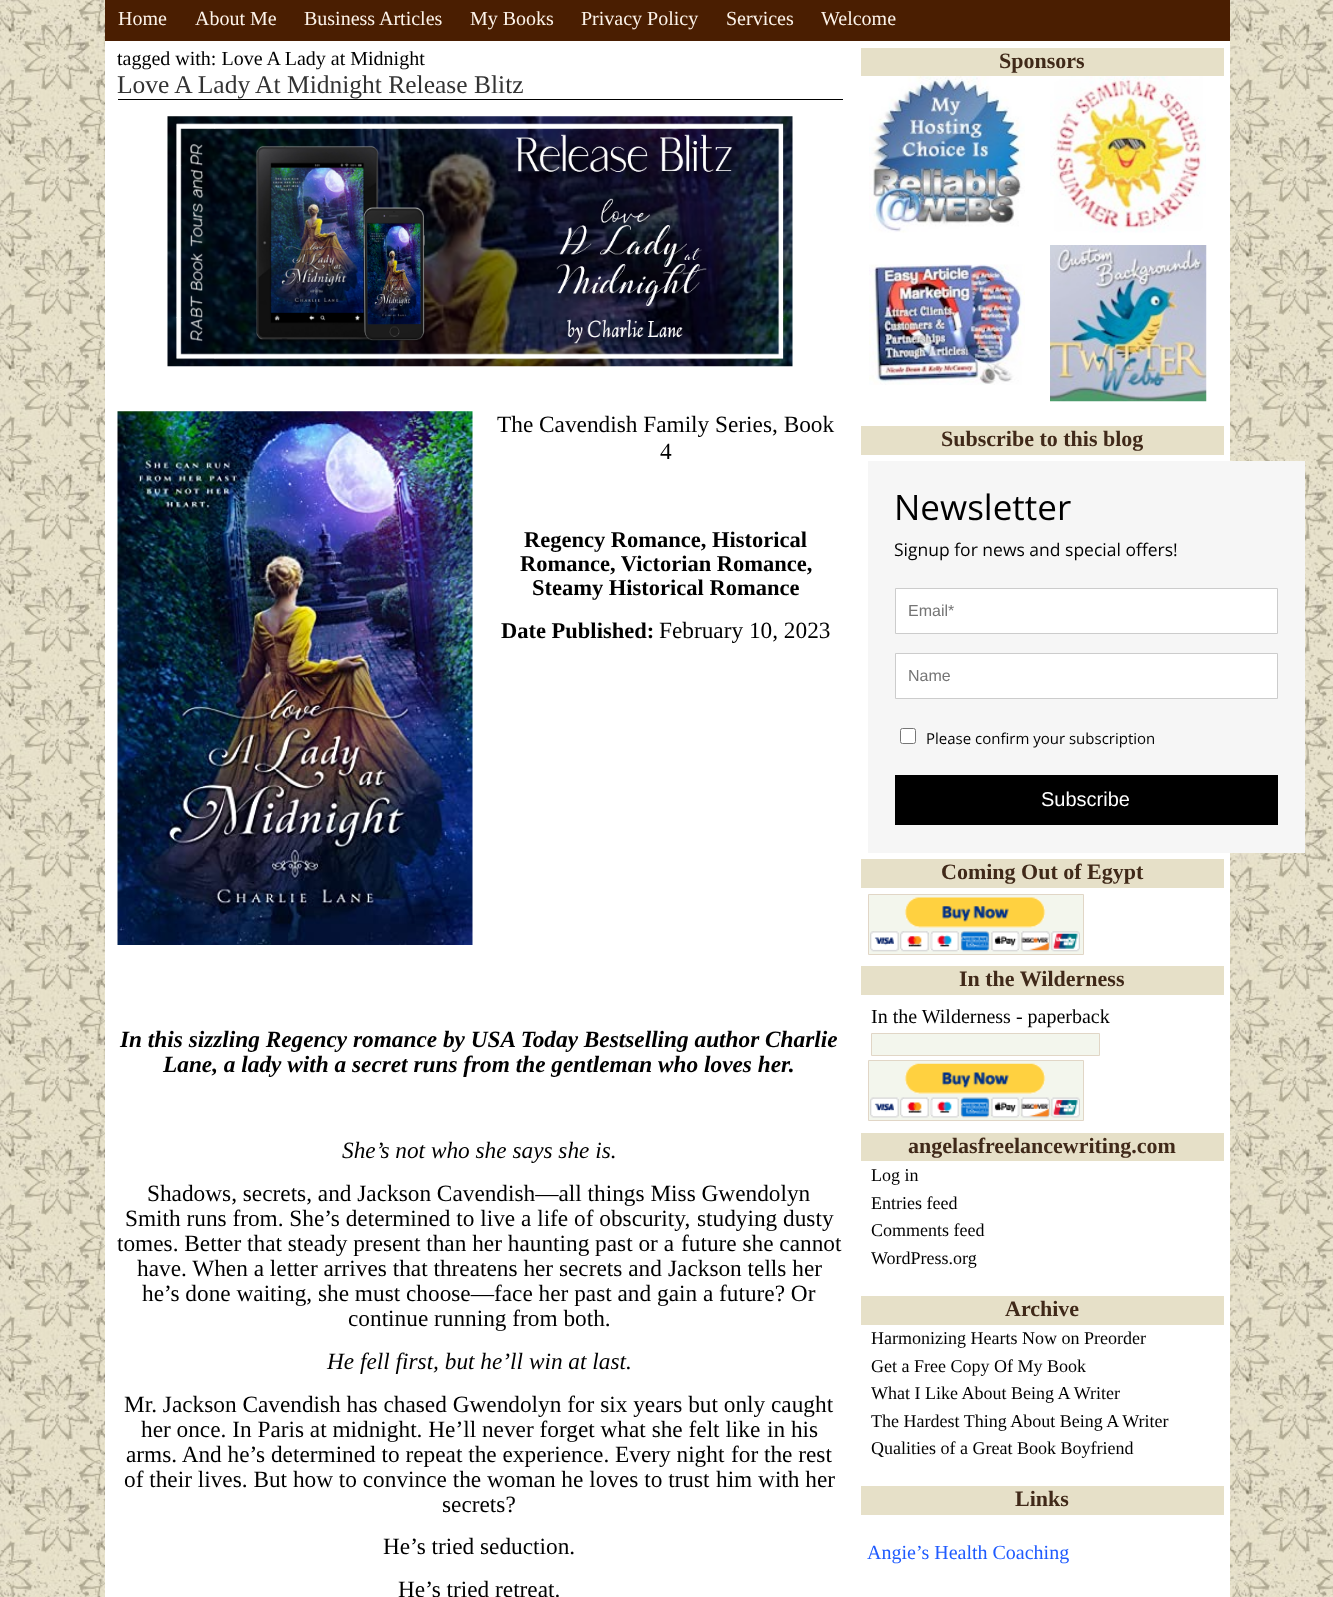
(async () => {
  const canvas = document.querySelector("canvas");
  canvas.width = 1333;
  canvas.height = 1597;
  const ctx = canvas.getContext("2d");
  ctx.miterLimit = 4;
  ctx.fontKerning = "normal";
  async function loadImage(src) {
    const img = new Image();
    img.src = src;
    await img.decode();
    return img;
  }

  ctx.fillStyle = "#ffffff";
  ctx.fillRect(0, 0, 1333, 1597);
  ctx.drawImage(await loadImage("img/1.png"), 0, 0, 1333, 1597);
  for (const [x, y, w, h, color] of [
    [105, 41, 1125, 1556, "#ffffff"],
    [105, 0, 1125, 41, "#4a1e01"],
    [118, 99, 725, 1, "#000000"],
  ]) {
    ctx.fillStyle = color;
    ctx.fillRect(x, y, w, h);
  }
  ctx.drawImage(await loadImage("img/2.png"), 167, 116, 626, 251);
  ctx.drawImage(await loadImage("img/3.png"), 117, 411, 356, 534);
  ctx.fillStyle = "#e6e0c8";
  ctx.fillRect(861, 48, 363, 28);
  ctx.drawImage(await loadImage("img/4.png"), 869, 76, 156, 157);
  ctx.drawImage(await loadImage("img/5.png"), 1050, 76, 156, 157);
  ctx.drawImage(await loadImage("img/6.png"), 869, 264, 156, 121);
  ctx.drawImage(await loadImage("img/7.png"), 1050, 245, 157, 157);
  ctx.fillRect(861, 426, 363, 29);
  ctx.fillStyle = "#f6f6f6";
  ctx.fillRect(868, 461, 437, 392);
  ctx.fillStyle = "#ffffff";
  ctx.beginPath();
  ctx.rect(895.5, 588.5, 382, 45);
  ctx.fill();
  ctx.strokeStyle = "#cccccc";
  ctx.stroke();
  ctx.beginPath();
  ctx.rect(895.5, 653.5, 382, 45);
  ctx.fill();
  ctx.stroke();
  ctx.beginPath();
  ctx.roundRect(900.5, 728.5, 15, 15, 2);
  ctx.fill();
  ctx.strokeStyle = "#767676";
  ctx.stroke();
  ctx.fillStyle = "#000000";
  ctx.fillRect(895, 775, 383, 50);
  ctx.fillStyle = "#e6e0c8";
  ctx.fillRect(861, 859, 363, 29);
  ctx.fillStyle = "#f3f6ed";
  ctx.beginPath();
  ctx.rect(868.5, 894.5, 215, 60);
  ctx.fill();
  ctx.strokeStyle = "#e1d6c6";
  ctx.stroke();
  ctx.drawImage(await loadImage("img/8.png"), 870, 897, 210, 55);
  ctx.fillStyle = "#e6e0c8";
  ctx.fillRect(861, 966, 363, 29);
  ctx.fillStyle = "#f3f6ed";
  ctx.beginPath();
  ctx.rect(871.5, 1033.5, 228, 22);
  ctx.fill();
  ctx.stroke();
  ctx.beginPath();
  ctx.rect(868.5, 1060.5, 215, 60);
  ctx.fill();
  ctx.stroke();
  ctx.drawImage(await loadImage("img/9.png"), 870, 1063, 210, 55);
  for (const [x, y, w, h, color] of [
    [861, 1133, 363, 28, "#e6e0c8"],
    [861, 1296, 363, 29, "#e6e0c8"],
    [861, 1486, 363, 29, "#e6e0c8"],
  ]) {
    ctx.fillStyle = color;
    ctx.fillRect(x, y, w, h);
  }
  ctx.font = "20px Liberation Serif";
  ctx.fillStyle = "#fdf3e9";
  for (const [text, x, y] of [
    ["Home", 118, 25],
    ["About Me", 195, 25],
    ["Business Articles", 304, 25],
    ["My Books", 470, 25],
    ["Privacy Policy", 581, 25],
    ["Services", 726, 25],
    ["Welcome", 821, 25],
  ]) {
    ctx.fillText(text, x, y);
  }
  ctx.fillStyle = "#000000";
  ctx.fillText("tagged with: Love A Lady at Midnight", 117, 65);
  ctx.font = "25.5px Liberation Serif";
  ctx.fillStyle = "#333333";
  ctx.fillText("Love A Lady At Midnight Release Blitz", 117, 93);
  ctx.font = "23.3px Liberation Serif";
  ctx.fillStyle = "#000000";
  ctx.fillText("The Cavendish Family Series, Book", 497, 432);
  ctx.fillText("4", 660, 459);
  ctx.font = "bold 22.5px Liberation Serif";
  for (const [text, x, y] of [
    ["Regency Romance, Historical", 524, 547],
    ["Romance, Victorian Romance,", 520, 571],
    ["Steamy Historical Romance", 532, 595],
    ["Date Published:", 501, 638],
  ]) {
    ctx.fillText(text, x, y);
  }
  ctx.font = "23.3px Liberation Serif";
  ctx.fillText("February 10, 2023", 659, 638);
  ctx.font = "italic bold 23.3px Liberation Serif";
  ctx.fillText("In this sizzling Regency romance by USA Today Bestselling author Charlie", 120, 1047);
  ctx.fillText("Lane, a lady with a secret runs from the gentleman who loves her.", 163, 1072);
  ctx.font = "italic 23.3px Liberation Serif";
  ctx.fillText("She’s not who she says she is.", 342, 1158);
  ctx.font = "23.3px Liberation Serif";
  for (const [text, x, y] of [
    ["Shadows, secrets, and Jackson Cavendish—all things Miss Gwendolyn", 147, 1201],
    ["Smith runs from. She’s determined to live a life of obscurity,", 125, 1226],
    ["studying dusty", 697, 1226],
    ["tomes. Better that steady present than her haunting past or a", 117, 1251],
    ["future she cannot", 681, 1251],
    ["have. When a letter arrives that threatens her secrets and", 137, 1276],
    ["Jackson tells her", 668, 1276],
    ["he’s done waiting, she must choose—face her past and gain a future? Or", 142, 1301],
    ["continue running from both.", 348, 1326],
  ]) {
    ctx.fillText(text, x, y);
  }
  ctx.font = "italic 23.3px Liberation Serif";
  ctx.fillText("He fell first, but he’ll win at last.", 327, 1369);
  ctx.font = "23.3px Liberation Serif";
  for (const [text, x, y] of [
    ["Mr. Jackson Cavendish has chased Gwendolyn for six years but only caught", 124, 1412],
    ["her once. In Paris at midnight. He’ll never forget what she felt like", 141, 1437],
    ["in his", 767, 1437],
    ["arms. And he’s determined to repeat the experience. Every night", 126, 1462],
    ["for the rest", 731, 1462],
    ["of their lives. But how to convince the woman he loves to trust", 124, 1487],
    ["him with her", 716, 1487],
    ["secrets?", 442, 1512],
    ["He’s tried seduction.", 383, 1554],
    ["He’s tried retreat.", 398, 1597],
  ]) {
    ctx.fillText(text, x, y);
  }
  ctx.font = "bold 22px Liberation Serif";
  ctx.fillStyle = "#402919";
  ctx.fillText("Sponsors", 999, 68);
  ctx.fillText("Subscribe to this blog", 941, 446);
  ctx.font = "35px Open Sans";
  ctx.fillStyle = "#000000";
  ctx.fillText("Newsletter", 894, 520);
  ctx.font = "17.5px Open Sans";
  ctx.fillText("Signup for news and special offers!", 894, 556);
  ctx.font = "16px Liberation Sans";
  ctx.fillStyle = "#757575";
  ctx.fillText("Email*", 908, 616);
  ctx.fillText("Name", 908, 681);
  ctx.font = "15px Open Sans";
  ctx.fillStyle = "#000000";
  ctx.fillText("Please confirm your subscription", 926, 744);
  ctx.font = "20px Liberation Sans";
  ctx.fillStyle = "#ffffff";
  ctx.fillText("Subscribe", 1041, 806);
  ctx.font = "bold 22px Liberation Serif";
  ctx.fillStyle = "#402919";
  ctx.fillText("Coming Out of Egypt", 941, 879);
  ctx.fillText("In the Wilderness", 959, 986);
  ctx.font = "20px Liberation Serif";
  ctx.fillStyle = "#000000";
  ctx.fillText("In the Wilderness - paperback", 871, 1023);
  ctx.font = "bold 22px Liberation Serif";
  ctx.fillStyle = "#402919";
  ctx.fillText("angelasfreelancewriting.com", 908, 1153);
  ctx.font = "18px Liberation Serif";
  ctx.fillStyle = "#000000";
  for (const [text, x, y] of [
    ["Log in", 871, 1181],
    ["Entries feed", 871, 1209],
    ["Comments feed", 871, 1236],
    ["WordPress.org", 871, 1264],
  ]) {
    ctx.fillText(text, x, y);
  }
  ctx.font = "bold 22px Liberation Serif";
  ctx.fillStyle = "#402919";
  ctx.fillText("Archive", 1005, 1316);
  ctx.font = "18px Liberation Serif";
  ctx.fillStyle = "#000000";
  for (const [text, x, y] of [
    ["Harmonizing Hearts Now on Preorder", 871, 1344],
    ["Get a Free Copy Of My Book", 871, 1372],
    ["What I Like About Being A Writer", 871, 1399],
    ["The Hardest Thing About Being A Writer", 871, 1427],
    ["Qualities of a Great Book Boyfriend", 871, 1454],
  ]) {
    ctx.fillText(text, x, y);
  }
  ctx.font = "bold 22px Liberation Serif";
  ctx.fillStyle = "#402919";
  ctx.fillText("Links", 1015, 1506);
  ctx.font = "20px Liberation Serif";
  ctx.fillStyle = "#1f5bff";
  ctx.fillText("Angie’s Health Coaching", 867, 1559);
})();
